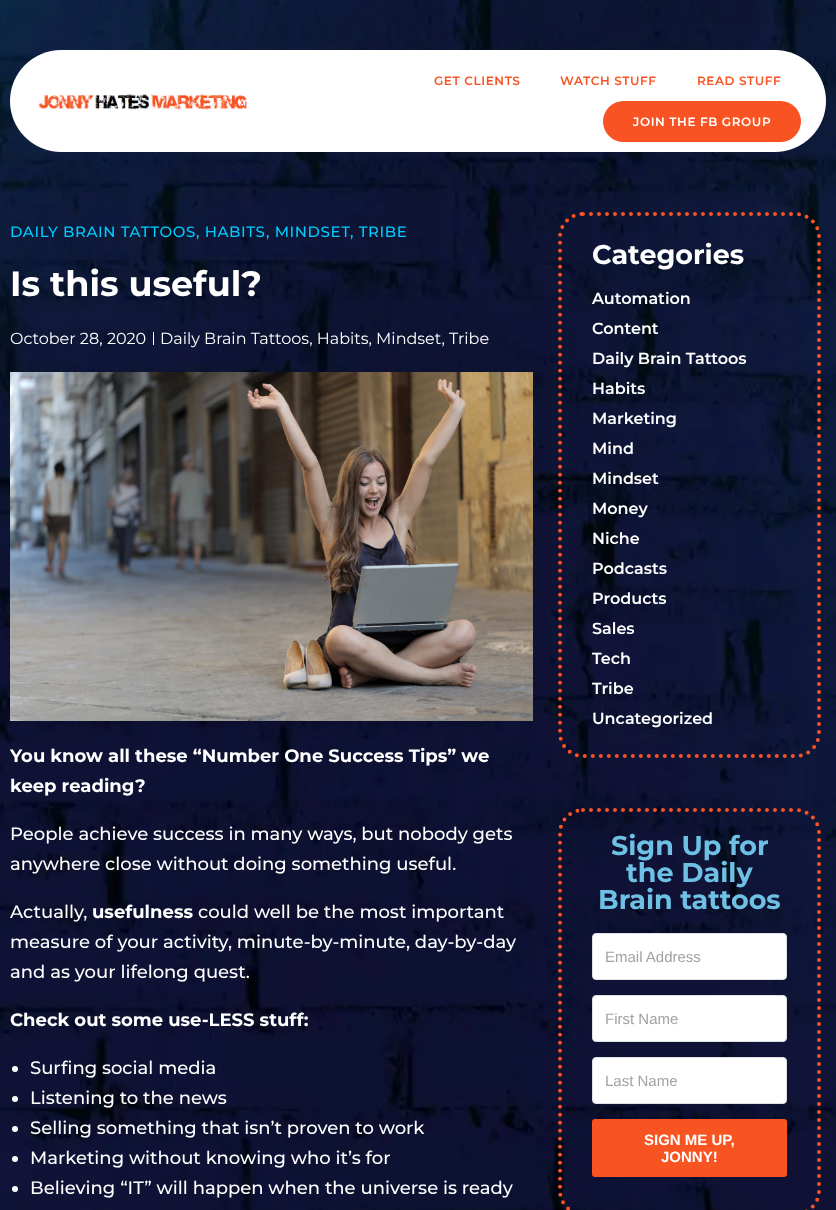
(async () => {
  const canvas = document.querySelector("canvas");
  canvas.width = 836;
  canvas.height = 1210;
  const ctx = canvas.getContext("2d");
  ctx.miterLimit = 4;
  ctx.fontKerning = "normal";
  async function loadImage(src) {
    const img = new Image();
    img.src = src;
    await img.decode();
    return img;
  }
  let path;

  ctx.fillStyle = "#ffffff";
  ctx.fillRect(0, 0, 836, 1210);
  ctx.drawImage(await loadImage("img/1.png"), 0, 0, 836, 1210);
  ctx.beginPath();
  ctx.roundRect(10, 50, 816, 102, 51);
  ctx.fill();
  ctx.drawImage(await loadImage("img/2.png"), 39, 94, 208, 16);
  ctx.fillStyle = "#f95323";
  ctx.beginPath();
  ctx.roundRect(603, 101, 198, 41, 20.5);
  ctx.fill();
  ctx.fillStyle = "#ffffff";
  ctx.fillRect(153, 332, 1, 13);
  ctx.drawImage(await loadImage("img/3.png"), 10, 372, 523, 349);
  ctx.beginPath();
  ctx.arc(15, 1069, 3, 0, Math.PI * 2);
  ctx.fill();
  ctx.beginPath();
  ctx.arc(15, 1099, 3, 0, Math.PI * 2);
  ctx.fill();
  ctx.beginPath();
  ctx.arc(15, 1129, 3, 0, Math.PI * 2);
  ctx.fill();
  ctx.beginPath();
  ctx.arc(15, 1159, 3, 0, Math.PI * 2);
  ctx.fill();
  ctx.beginPath();
  ctx.arc(15, 1189, 3, 0, Math.PI * 2);
  ctx.fill();
  path = new Path2D("M583 214H796C808.5 214 819 224.5 819 237V733C819 745.5 808.5 756 796 756H583C570.5 756 560 745.5 560 733V237C560 224.5 570.5 214 583 214Z");
  ctx.strokeStyle = "#f95323";
  ctx.lineWidth = 4;
  ctx.lineCap = "round";
  ctx.setLineDash([0, 8]);
  ctx.stroke(path);
  path = new Path2D("M583 810H796C808.5 810 819 820.5 819 833V1191C819 1203.5 808.5 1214 796 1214H583C570.5 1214 560 1203.5 560 1191V833C560 820.5 570.5 810 583 810Z");
  ctx.stroke(path);
  ctx.beginPath();
  ctx.roundRect(592.5, 933.5, 194, 46, 3.5);
  ctx.fill();
  ctx.strokeStyle = "#dde0e4";
  ctx.lineWidth = 1;
  ctx.setLineDash([]);
  ctx.stroke();
  ctx.beginPath();
  ctx.roundRect(592.5, 995.5, 194, 46, 3.5);
  ctx.fill();
  ctx.stroke();
  ctx.beginPath();
  ctx.roundRect(592.5, 1057.5, 194, 46, 3.5);
  ctx.fill();
  ctx.stroke();
  ctx.fillStyle = "#f75422";
  ctx.beginPath();
  ctx.roundRect(592, 1119, 195, 58, 3);
  ctx.fill();
  ctx.letterSpacing = "0.6px";
  ctx.font = "600 12px Montserrat";
  ctx.fillStyle = "#f95323";
  for (const [text, x, y] of [
    ["GET CLIENTS", 434, 85],
    ["WATCH STUFF", 560, 85],
    ["READ STUFF", 697, 85],
  ]) {
    ctx.fillText(text, x, y);
  }
  ctx.fillStyle = "#ffffff";
  ctx.fillText("JOIN THE FB GROUP", 633, 126);
  ctx.font = "500 15px Montserrat";
  ctx.fillStyle = "#00ccff";
  for (const [text, x, y] of [
    ["DAILY BRAIN TATTOOS", 10, 237],
    [", HABITS", 196, 237],
    [", MINDSET", 266, 237],
    [", TRIBE", 350, 237],
  ]) {
    ctx.fillText(text, x, y);
  }
  ctx.letterSpacing = "0px";
  ctx.font = "bold 35px Montserrat";
  ctx.fillStyle = "#ffffff";
  ctx.fillText("Is this useful?", 10, 296);
  ctx.font = "16px Montserrat";
  ctx.fillText("October 28, 2020", 10, 344);
  ctx.fillText("Daily Brain Tattoos, Habits, Mindset, Tribe", 160, 344);
  ctx.font = "bold 18px Montserrat";
  ctx.fillText("You know all these “Number One Success Tips” we", 10, 762);
  ctx.fillText("keep reading?", 10, 792);
  ctx.font = "500 18px Montserrat";
  for (const [text, x, y] of [
    ["People achieve success in many ways, but nobody gets", 10, 840],
    ["anywhere close without doing something useful.", 10, 870],
    ["Actually,", 10, 918],
  ]) {
    ctx.fillText(text, x, y);
  }
  ctx.font = "bold 18px Montserrat";
  ctx.fillText("usefulness", 92, 918);
  ctx.font = "500 18px Montserrat";
  for (const [text, x, y] of [
    ["could well be the most important", 198, 918],
    ["measure of your activity, minute-by-minute, day-by-day", 10, 948],
    ["and as your lifelong quest.", 10, 978],
  ]) {
    ctx.fillText(text, x, y);
  }
  ctx.font = "bold 18px Montserrat";
  ctx.fillText("Check out some use-LESS stuff:", 10, 1026);
  ctx.font = "500 18px Montserrat";
  for (const [text, x, y] of [
    ["Surfing social media", 30, 1074],
    ["Listening to the news", 30, 1104],
    ["Selling something that isn’t proven to work", 30, 1134],
    ["Marketing without knowing who it’s for", 30, 1164],
    ["Believing “IT” will happen when the universe is ready", 30, 1194],
  ]) {
    ctx.fillText(text, x, y);
  }
  ctx.font = "bold 27px Montserrat";
  ctx.fillText("Categories", 592, 264);
  ctx.font = "600 16px Montserrat";
  for (const [text, x, y] of [
    ["Automation", 592, 304],
    ["Content", 592, 334],
    ["Daily Brain Tattoos", 592, 364],
    ["Habits", 592, 394],
    ["Marketing", 592, 424],
    ["Mind", 592, 454],
    ["Mindset", 592, 484],
    ["Money", 592, 514],
    ["Niche", 592, 544],
    ["Podcasts", 592, 574],
    ["Products", 592, 604],
    ["Sales", 592, 634],
    ["Tech", 592, 664],
    ["Tribe", 592, 694],
    ["Uncategorized", 592, 724],
  ]) {
    ctx.fillText(text, x, y);
  }
  ctx.font = "bold 27px Montserrat";
  ctx.fillStyle = "#6ec1e4";
  for (const [text, x, y] of [
    ["Sign Up for", 611, 855],
    ["the Daily", 626, 882],
    ["Brain tattoos", 598, 909],
  ]) {
    ctx.fillText(text, x, y);
  }
  ctx.font = "15px Arimo";
  ctx.fillStyle = "#a2a2a2";
  for (const [text, x, y] of [
    ["Email Address", 605, 962],
    ["First Name", 605, 1024],
    ["Last Name", 605, 1086],
  ]) {
    ctx.fillText(text, x, y);
  }
  ctx.font = "bold 15px Arimo";
  ctx.fillStyle = "#ffffff";
  ctx.fillText("SIGN ME UP,", 644, 1145);
  ctx.fillText("JONNY!", 661, 1162);
})();
